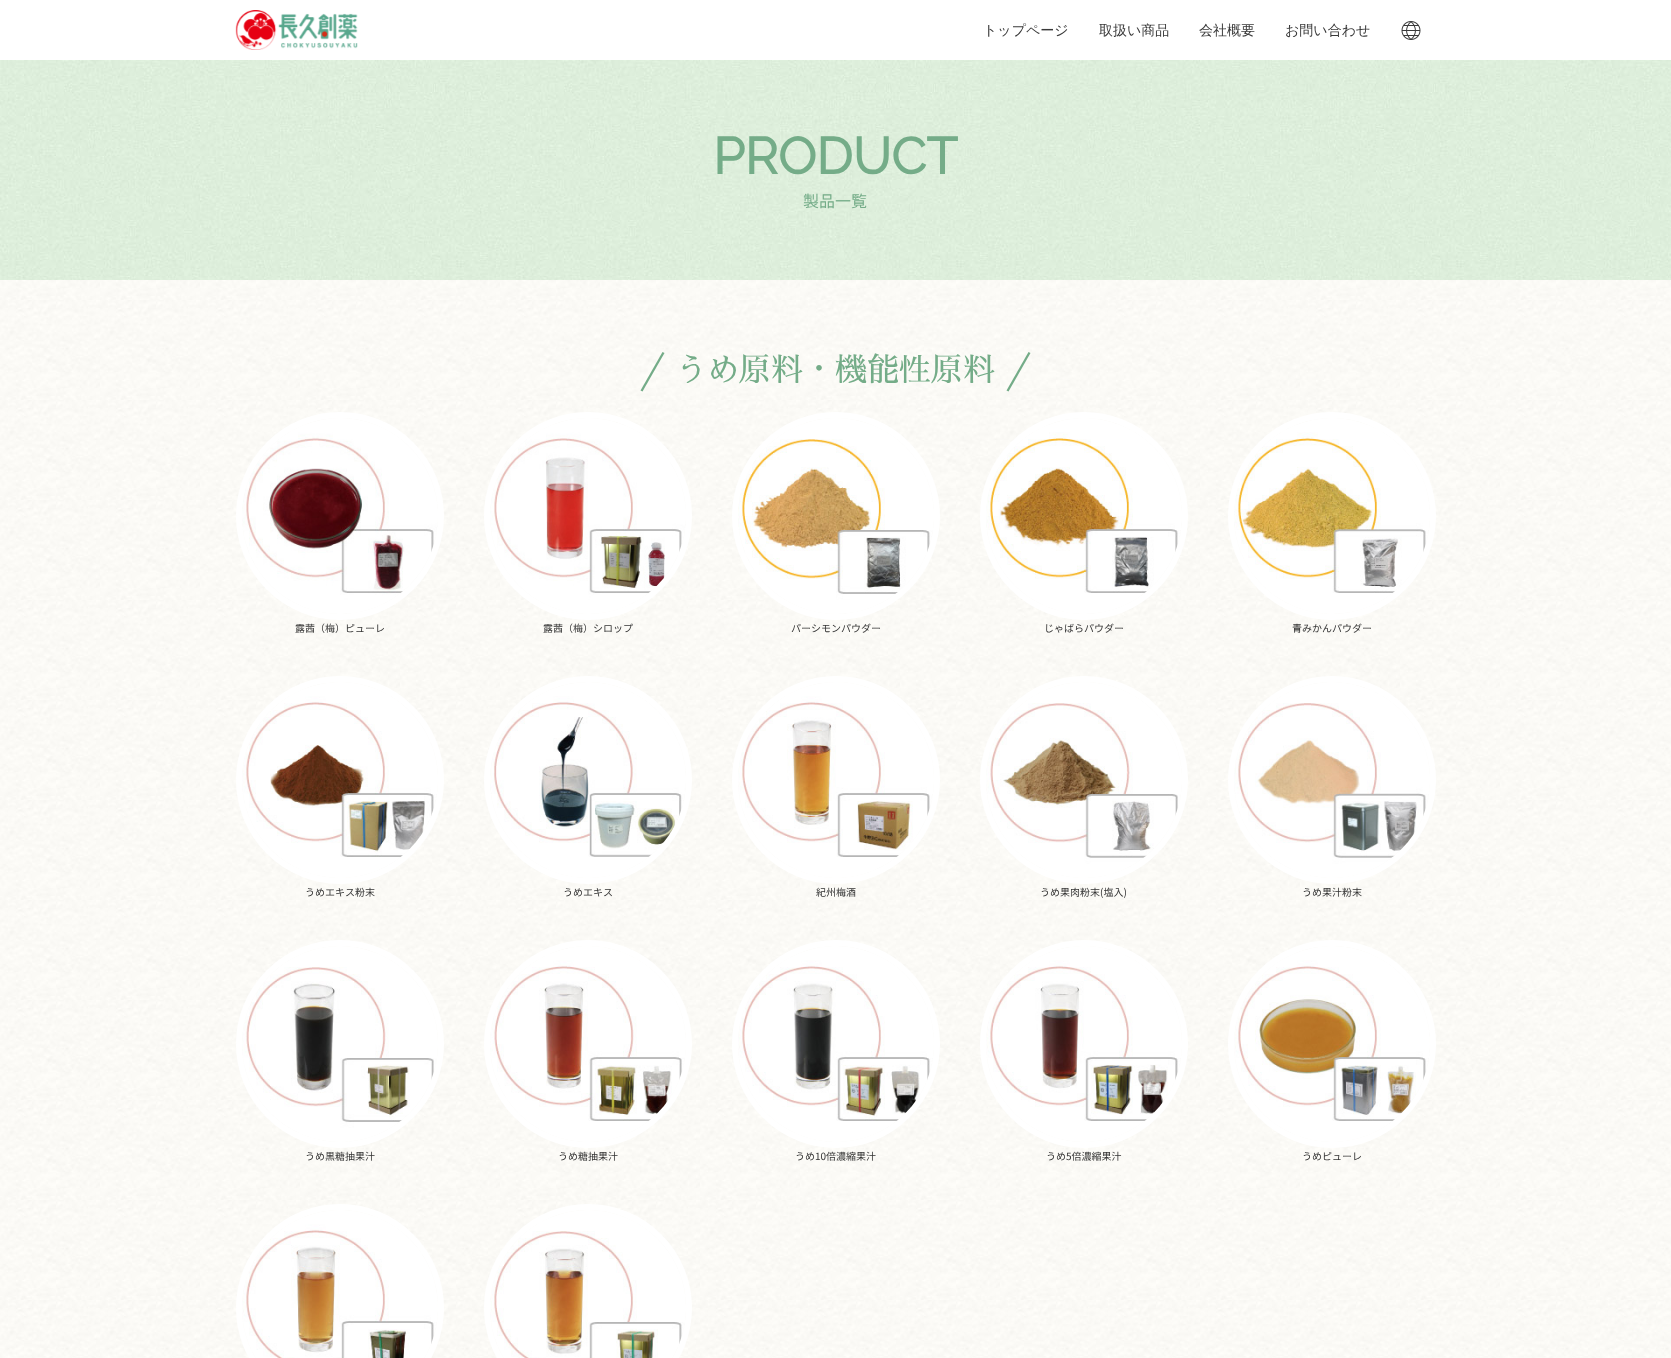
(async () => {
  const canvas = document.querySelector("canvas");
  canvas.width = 1671;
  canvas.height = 1358;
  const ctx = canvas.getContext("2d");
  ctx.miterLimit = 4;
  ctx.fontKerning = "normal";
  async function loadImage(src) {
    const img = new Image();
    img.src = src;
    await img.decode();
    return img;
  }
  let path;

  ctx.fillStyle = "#ffffff";
  ctx.fillRect(0, 0, 1671, 1358);
  ctx.drawImage(await loadImage("img/1.png"), 0, 280, 1671, 1078);
  ctx.drawImage(await loadImage("img/2.png"), 235, 10, 123, 40);
  ctx.drawImage(await loadImage("img/3.png"), 1401, 21, 20, 19);
  ctx.drawImage(await loadImage("img/4.png"), 0, 60, 1671, 220);
  ctx.fillStyle = "#74ac88";
  path = new Path2D("M640.5 390.5L662.5 352L664.5 353L642.5 391.5Z");
  ctx.fill(path);
  path = new Path2D("M1006.5 390.5L1028.5 352L1030.5 353L1008.5 391.5Z");
  ctx.fill(path);
  ctx.beginPath();
  ctx.arc(340, 516, 101, 0, Math.PI * 2);
  ctx.strokeStyle = "#ffffff";
  ctx.lineWidth = 6;
  ctx.stroke();
  ctx.drawImage(await loadImage("img/5.png"), 242, 418, 196, 196);
  ctx.beginPath();
  ctx.arc(588, 516, 101, 0, Math.PI * 2);
  ctx.stroke();
  ctx.drawImage(await loadImage("img/6.png"), 490, 418, 196, 196);
  ctx.beginPath();
  ctx.arc(836, 516, 101, 0, Math.PI * 2);
  ctx.stroke();
  ctx.drawImage(await loadImage("img/7.png"), 738, 418, 196, 196);
  ctx.beginPath();
  ctx.arc(1084, 516, 101, 0, Math.PI * 2);
  ctx.stroke();
  ctx.drawImage(await loadImage("img/8.png"), 986, 418, 196, 196);
  ctx.beginPath();
  ctx.arc(1332, 516, 101, 0, Math.PI * 2);
  ctx.stroke();
  ctx.drawImage(await loadImage("img/9.png"), 1234, 418, 196, 196);
  ctx.beginPath();
  ctx.arc(340, 780, 101, 0, Math.PI * 2);
  ctx.stroke();
  ctx.drawImage(await loadImage("img/10.png"), 242, 682, 196, 196);
  ctx.beginPath();
  ctx.arc(588, 780, 101, 0, Math.PI * 2);
  ctx.stroke();
  ctx.drawImage(await loadImage("img/11.png"), 490, 682, 196, 196);
  ctx.beginPath();
  ctx.arc(836, 780, 101, 0, Math.PI * 2);
  ctx.stroke();
  ctx.drawImage(await loadImage("img/12.png"), 738, 682, 196, 196);
  ctx.beginPath();
  ctx.arc(1084, 780, 101, 0, Math.PI * 2);
  ctx.stroke();
  ctx.drawImage(await loadImage("img/13.png"), 986, 682, 196, 196);
  ctx.beginPath();
  ctx.arc(1332, 780, 101, 0, Math.PI * 2);
  ctx.stroke();
  ctx.drawImage(await loadImage("img/14.png"), 1234, 682, 196, 196);
  ctx.beginPath();
  ctx.arc(340, 1044, 101, 0, Math.PI * 2);
  ctx.stroke();
  ctx.drawImage(await loadImage("img/15.png"), 242, 946, 196, 196);
  ctx.beginPath();
  ctx.arc(588, 1044, 101, 0, Math.PI * 2);
  ctx.stroke();
  ctx.drawImage(await loadImage("img/16.png"), 490, 946, 196, 196);
  ctx.beginPath();
  ctx.arc(836, 1044, 101, 0, Math.PI * 2);
  ctx.stroke();
  ctx.drawImage(await loadImage("img/17.png"), 738, 946, 196, 196);
  ctx.beginPath();
  ctx.arc(1084, 1044, 101, 0, Math.PI * 2);
  ctx.stroke();
  ctx.drawImage(await loadImage("img/18.png"), 986, 946, 196, 196);
  ctx.beginPath();
  ctx.arc(1332, 1044, 101, 0, Math.PI * 2);
  ctx.stroke();
  ctx.drawImage(await loadImage("img/19.png"), 1234, 946, 196, 196);
  ctx.beginPath();
  ctx.arc(340, 1308, 101, 0, Math.PI * 2);
  ctx.stroke();
  ctx.drawImage(await loadImage("img/20.png"), 242, 1210, 196, 148);
  ctx.beginPath();
  ctx.arc(588, 1308, 101, 0, Math.PI * 2);
  ctx.stroke();
  ctx.drawImage(await loadImage("img/21.png"), 490, 1210, 196, 148);
  ctx.font = "500 14px WenQuanYi Zen Hei";
  ctx.fillStyle = "#393939";
  for (const [text, x, y] of [
    ["トップページ", 983, 35],
    ["取扱い商品", 1099, 35],
    ["会社概要", 1199, 35],
    ["お問い合わせ", 1285, 35],
  ]) {
    ctx.fillText(text, x, y);
  }
  ctx.font = "bold 51px Raleway";
  ctx.fillStyle = "#74ac88";
  ctx.fillText("PRODUCT", 713, 174);
  ctx.font = "16px Noto Sans JP";
  ctx.fillText("製品一覧", 803, 207);
  ctx.font = "32px Sawarabi Mincho";
  ctx.fillText("うめ原料・機能性原料", 675, 381);
  ctx.font = "10px Noto Sans JP";
  ctx.fillStyle = "#333333";
  for (const [text, x, y] of [
    ["露茜（梅）ピューレ", 295, 632],
    ["露茜（梅）シロップ", 543, 632],
    ["パーシモンパウダー", 791, 632],
    ["じゃばらパウダー", 1044, 632],
    ["青みかんパウダー", 1292, 632],
    ["うめエキス粉末", 305, 896],
    ["うめエキス", 563, 896],
    ["紀州梅酒", 816, 896],
    ["うめ果肉粉末(塩入)", 1040, 896],
    ["うめ果汁粉末", 1302, 896],
    ["うめ黒糖抽果汁", 305, 1160],
    ["うめ糖抽果汁", 558, 1160],
    ["うめ10倍濃縮果汁", 795, 1160],
    ["うめ5倍濃縮果汁", 1046, 1160],
    ["うめピューレ", 1302, 1160],
  ]) {
    ctx.fillText(text, x, y);
  }
})();
